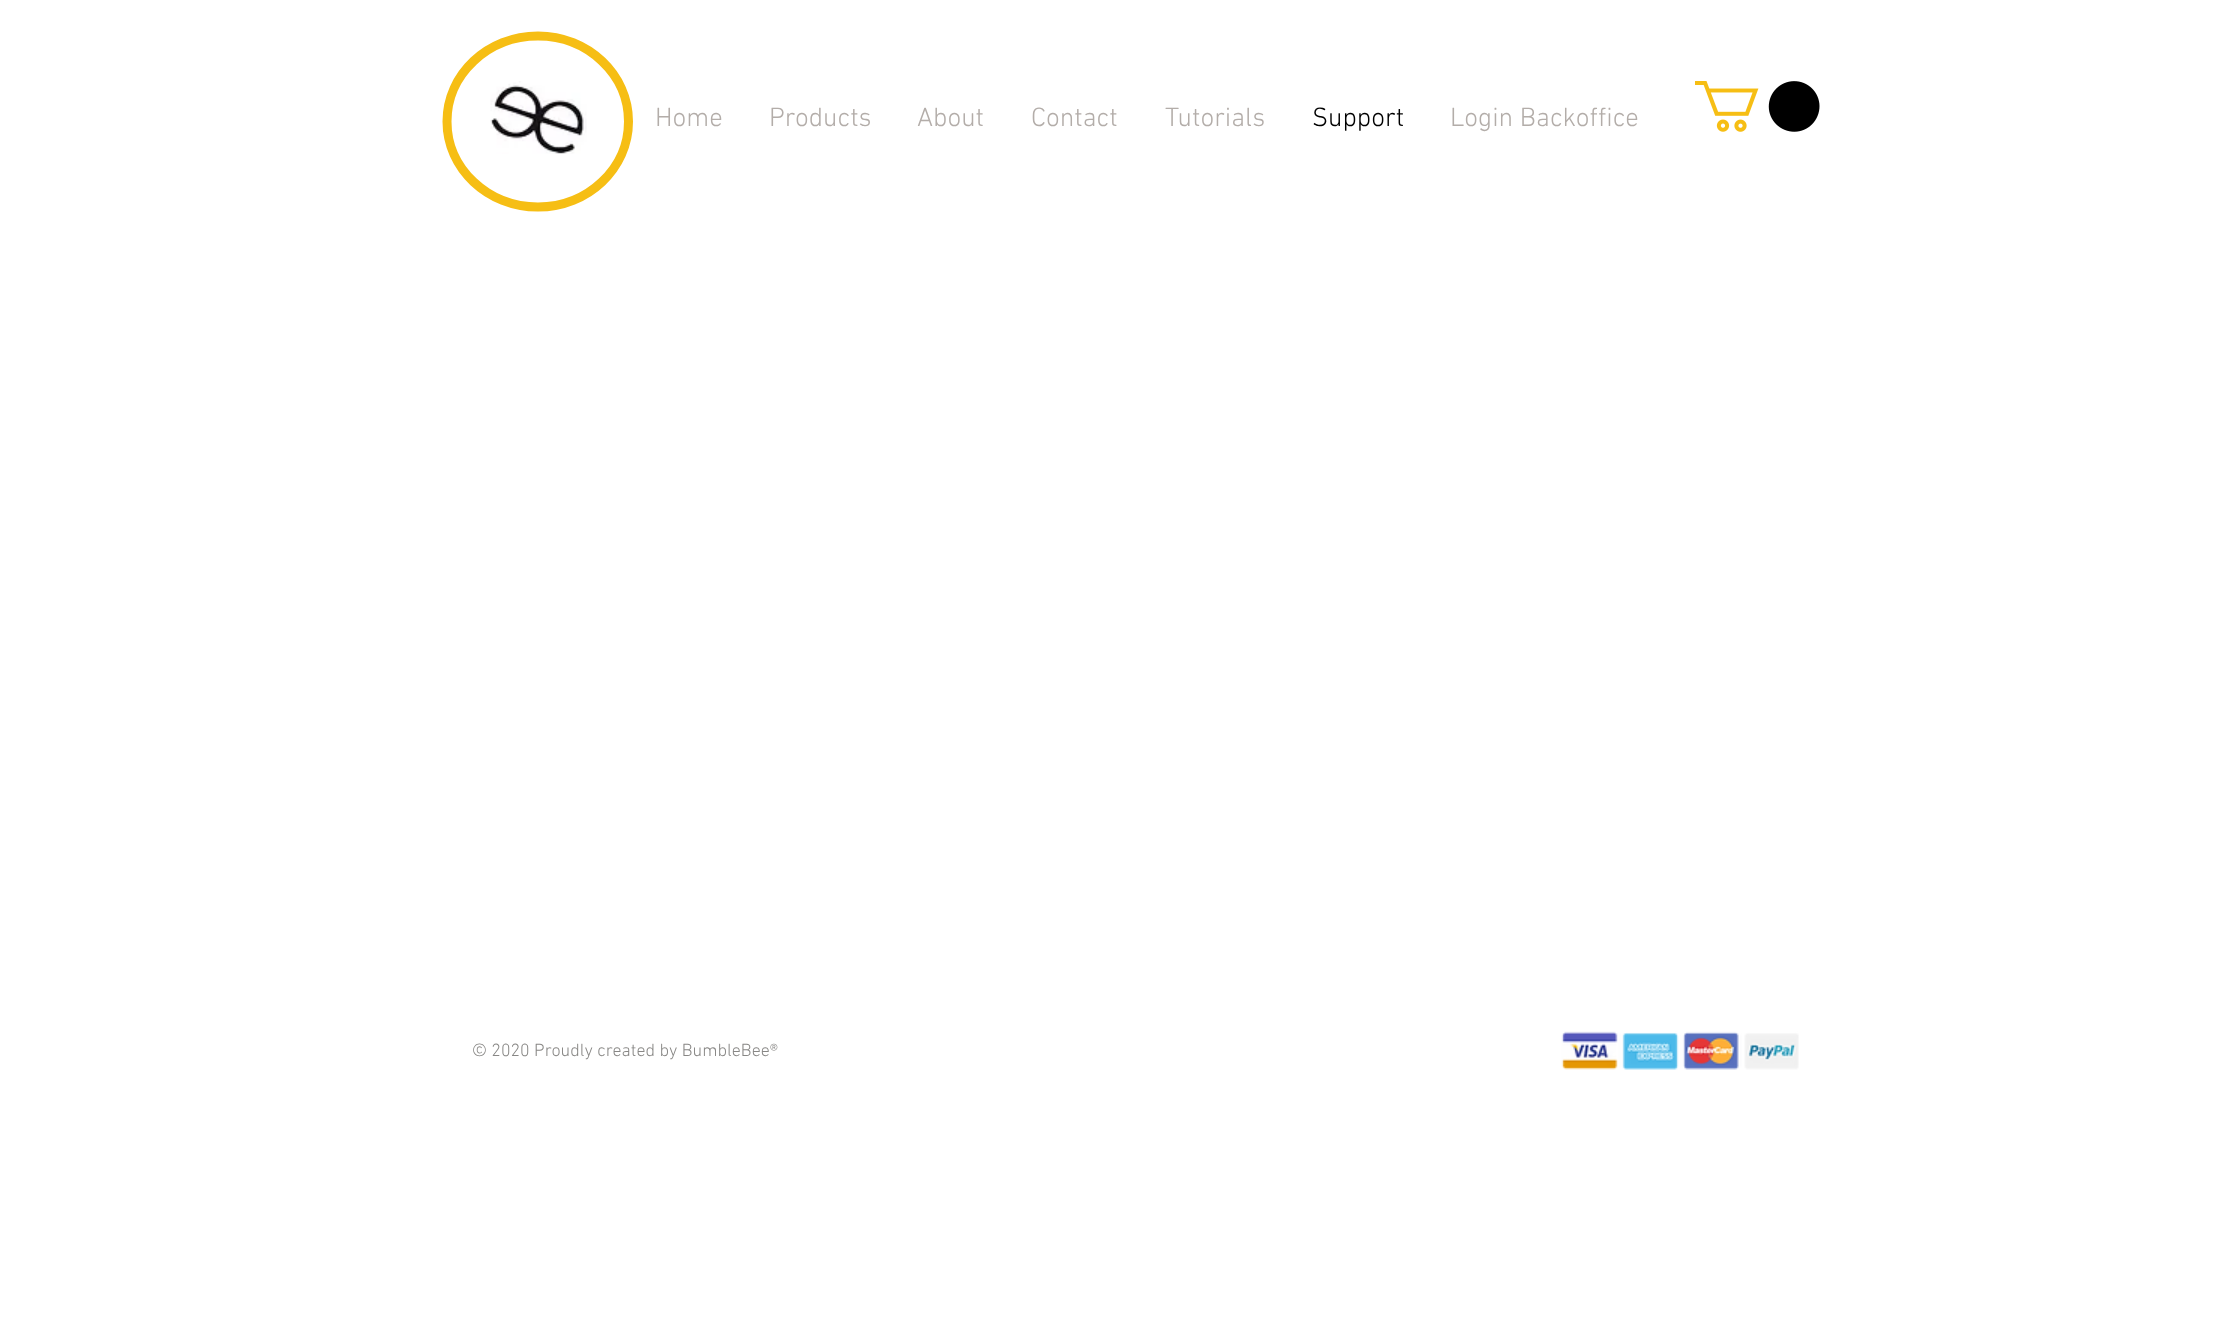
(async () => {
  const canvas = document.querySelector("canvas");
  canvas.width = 2233;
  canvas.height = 1328;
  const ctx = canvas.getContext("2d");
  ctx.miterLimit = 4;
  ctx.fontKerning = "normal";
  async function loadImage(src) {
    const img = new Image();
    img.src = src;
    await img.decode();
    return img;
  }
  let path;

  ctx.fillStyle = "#ffffff";
  ctx.fillRect(0, 0, 2233, 1328);
  path = new Path2D("M538 36C588 36 628.5 74.5 628.5 121.5C628.5 168.5 588 207 538 207C487.5 207 447 168.5 447 121.5C447 74.5 487.5 36 538 36Z");
  ctx.strokeStyle = "#f6be14";
  ctx.lineWidth = 9;
  ctx.stroke(path);
  ctx.drawImage(await loadImage("img/1.png"), 490, 81, 97, 73);
  ctx.drawImage(await loadImage("img/2.png"), 1695, 81, 125, 51);
  ctx.drawImage(await loadImage("img/3.png"), 1561, 1031, 238, 39);
  ctx.font = "300 27px 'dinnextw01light'";
  ctx.fillStyle = "#b3ada9";
  for (const [text, x, y] of [
    ["Home", 655, 126],
    ["Products", 769, 126],
    ["About", 917, 126],
    ["Contact", 1031, 126],
    ["Tutorials", 1165, 126],
  ]) {
    ctx.fillText(text, x, y);
  }
  ctx.fillStyle = "#000000";
  ctx.fillText("Support", 1312, 126);
  ctx.fillStyle = "#b3ada9";
  ctx.fillText("Login Backoffice", 1450, 126);
  ctx.font = "300 18px 'dinnextw01light'";
  ctx.fillStyle = "#888785";
  ctx.fillText("© 2020 Proudly created by BumbleBee®", 472, 1056);
})();
